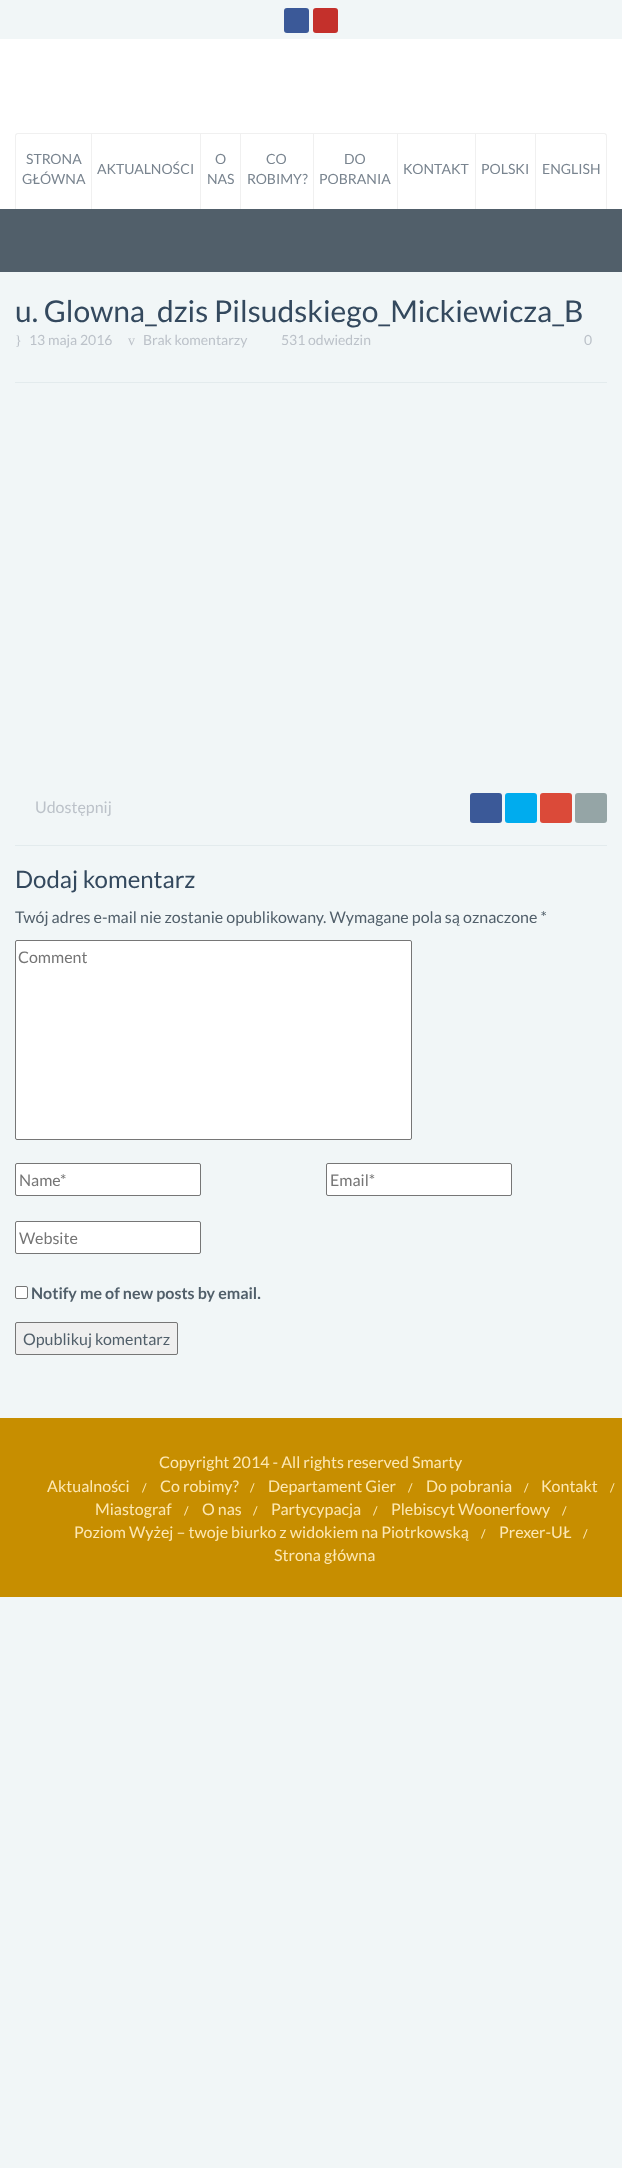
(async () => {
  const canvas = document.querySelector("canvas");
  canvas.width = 622;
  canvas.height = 2168;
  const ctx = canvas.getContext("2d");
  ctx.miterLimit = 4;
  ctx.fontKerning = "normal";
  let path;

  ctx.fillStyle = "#f1f6f7";
  ctx.fillRect(0, 0, 622, 2168);
  ctx.fillStyle = "#3b5998";
  ctx.beginPath();
  ctx.roundRect(284, 8, 25, 25, 3);
  ctx.fill();
  ctx.fillStyle = "#c4302b";
  ctx.beginPath();
  ctx.roundRect(313, 8, 25, 25, 3);
  ctx.fill();
  ctx.fillStyle = "#ffffff";
  ctx.fillRect(0, 39, 622, 170);
  ctx.fillStyle = "#f0f0f0";
  path = new Path2D("M18 133H604C606 133 607 134 607 136V209H15V136C15 134 16 133 18 133ZM18 134H604C605 134 606 135 606 136V209H16V136C16 135 17 134 18 134Z");
  ctx.fill(path, "evenodd");
  for (const [x, y, w, h, color] of [
    [91, 134, 1, 75, "#f0f0f0"],
    [200, 134, 1, 75, "#f0f0f0"],
    [240, 134, 1, 75, "#f0f0f0"],
    [313, 134, 1, 75, "#f0f0f0"],
    [397, 134, 1, 75, "#f0f0f0"],
    [475, 134, 1, 75, "#f0f0f0"],
    [535, 134, 1, 75, "#f0f0f0"],
    [0, 209, 622, 63, "#515f6a"],
    [15, 382, 592, 1, "#e3ebed"],
    [15, 845, 592, 1, "#e3ebed"],
  ]) {
    ctx.fillStyle = color;
    ctx.fillRect(x, y, w, h);
  }
  ctx.fillStyle = "#3b5998";
  ctx.beginPath();
  ctx.roundRect(470, 793, 32, 30, 3);
  ctx.fill();
  ctx.fillStyle = "#00acee";
  ctx.beginPath();
  ctx.roundRect(505, 793, 32, 30, 3);
  ctx.fill();
  ctx.fillStyle = "#db4a39";
  ctx.beginPath();
  ctx.roundRect(540, 793, 32, 30, 3);
  ctx.fill();
  ctx.fillStyle = "#95a5a6";
  ctx.beginPath();
  ctx.roundRect(575, 793, 32, 30, 3);
  ctx.fill();
  ctx.fillStyle = "#ffffff";
  ctx.beginPath();
  ctx.roundRect(15.5, 940.5, 396, 199, 1.5);
  ctx.fill();
  ctx.strokeStyle = "#767676";
  ctx.stroke();
  ctx.beginPath();
  ctx.roundRect(15.5, 1163.5, 185, 32, 1.5);
  ctx.fill();
  ctx.stroke();
  ctx.beginPath();
  ctx.roundRect(326.5, 1163.5, 185, 32, 1.5);
  ctx.fill();
  ctx.stroke();
  ctx.beginPath();
  ctx.roundRect(15.5, 1221.5, 185, 32, 1.5);
  ctx.fill();
  ctx.stroke();
  ctx.beginPath();
  ctx.roundRect(15.5, 1286.5, 12, 12, 1.5);
  ctx.fill();
  ctx.stroke();
  ctx.fillStyle = "#efefef";
  ctx.beginPath();
  ctx.roundRect(15.5, 1322.5, 162, 32, 1.5);
  ctx.fill();
  ctx.stroke();
  ctx.fillStyle = "#c78e00";
  ctx.fillRect(0, 1418, 622, 179);
  ctx.font = "14px Lato";
  ctx.fillStyle = "#79848f";
  for (const [text, x, y] of [
    ["STRONA", 26, 164],
    ["GŁÓWNA", 22, 184],
    ["AKTUALNOŚCI", 97, 174],
    ["O", 215, 164],
    ["NAS", 207, 184],
    ["CO", 266, 164],
    ["ROBIMY?", 247, 184],
    ["DO", 344, 164],
    ["POBRANIA", 319, 184],
    ["KONTAKT", 403, 174],
    ["POLSKI", 481, 174],
    ["ENGLISH", 542, 174],
  ]) {
    ctx.fillText(text, x, y);
  }
  ctx.font = "30px Lato";
  ctx.fillStyle = "#34495e";
  ctx.fillText("u. Glowna_dzis Pilsudskiego_Mickiewicza_B", 15, 322);
  ctx.font = "14px Liberation Serif";
  ctx.fillStyle = "#bcc2c9";
  ctx.fillText("}", 15, 345);
  ctx.font = "14px Lato";
  ctx.fillText("13 maja 2016", 29, 345);
  ctx.font = "14px Liberation Serif";
  ctx.fillText("v", 128, 345);
  ctx.font = "14px Lato";
  for (const [text, x, y] of [
    ["Brak komentarzy", 143, 345],
    ["531 odwiedzin", 281, 345],
    ["0", 584, 345],
  ]) {
    ctx.fillText(text, x, y);
  }
  ctx.font = "16px Lato";
  ctx.fillText("Udostępnij", 35, 813);
  ctx.font = "24px Lato";
  ctx.fillStyle = "#34495e";
  ctx.fillText("Dodaj komentarz", 15, 888);
  ctx.font = "16px Lato";
  ctx.fillStyle = "#515f6a";
  ctx.fillText("Twój adres e-mail nie zostanie opublikowany. Wymagane pola są oznaczone *", 15, 923);
  ctx.fillStyle = "#757575";
  for (const [text, x, y] of [
    ["Comment", 18, 963],
    ["Name*", 19, 1186],
    ["Email*", 330, 1186],
    ["Website", 19, 1244],
  ]) {
    ctx.fillText(text, x, y);
  }
  ctx.font = "bold 16px Lato";
  ctx.fillStyle = "#515f6a";
  ctx.fillText("Notify me of new posts by email.", 31, 1299);
  ctx.font = "16px Lato";
  ctx.fillText("Opublikuj komentarz", 23, 1345);
  ctx.fillStyle = "#fde8b3";
  ctx.fillText("Copyright 2014 - All rights reserved Smarty", 159, 1468);
  ctx.fillText("Aktualności", 47, 1492);
  ctx.font = "12px Lato";
  ctx.fillText("/", 142, 1492);
  ctx.font = "16px Lato";
  ctx.fillText("Co robimy?", 160, 1492);
  ctx.font = "12px Lato";
  ctx.fillText("/", 250, 1492);
  ctx.font = "16px Lato";
  ctx.fillText("Departament Gier", 268, 1492);
  ctx.font = "12px Lato";
  ctx.fillText("/", 408, 1492);
  ctx.font = "16px Lato";
  ctx.fillText("Do pobrania", 426, 1492);
  ctx.font = "12px Lato";
  ctx.fillText("/", 524, 1492);
  ctx.font = "16px Lato";
  ctx.fillText("Kontakt", 541, 1492);
  ctx.font = "12px Lato";
  ctx.fillText("/", 610, 1492);
  ctx.font = "16px Lato";
  ctx.fillText("Miastograf", 95, 1515);
  ctx.font = "12px Lato";
  ctx.fillText("/", 184, 1515);
  ctx.font = "16px Lato";
  ctx.fillText("O nas", 202, 1515);
  ctx.font = "12px Lato";
  ctx.fillText("/", 253, 1515);
  ctx.font = "16px Lato";
  ctx.fillText("Partycypacja", 271, 1515);
  ctx.font = "12px Lato";
  ctx.fillText("/", 373, 1515);
  ctx.font = "16px Lato";
  ctx.fillText("Plebiscyt Woonerfowy", 391, 1515);
  ctx.font = "12px Lato";
  ctx.fillText("/", 562, 1515);
  ctx.font = "16px Lato";
  ctx.fillText("Poziom Wyżej – twoje biurko z widokiem na Piotrkowską", 74, 1538);
  ctx.font = "12px Lato";
  ctx.fillText("/", 481, 1538);
  ctx.font = "16px Lato";
  ctx.fillText("Prexer-UŁ", 499, 1538);
  ctx.font = "12px Lato";
  ctx.fillText("/", 583, 1538);
  ctx.font = "16px Lato";
  ctx.fillText("Strona główna", 274, 1561);
})();
